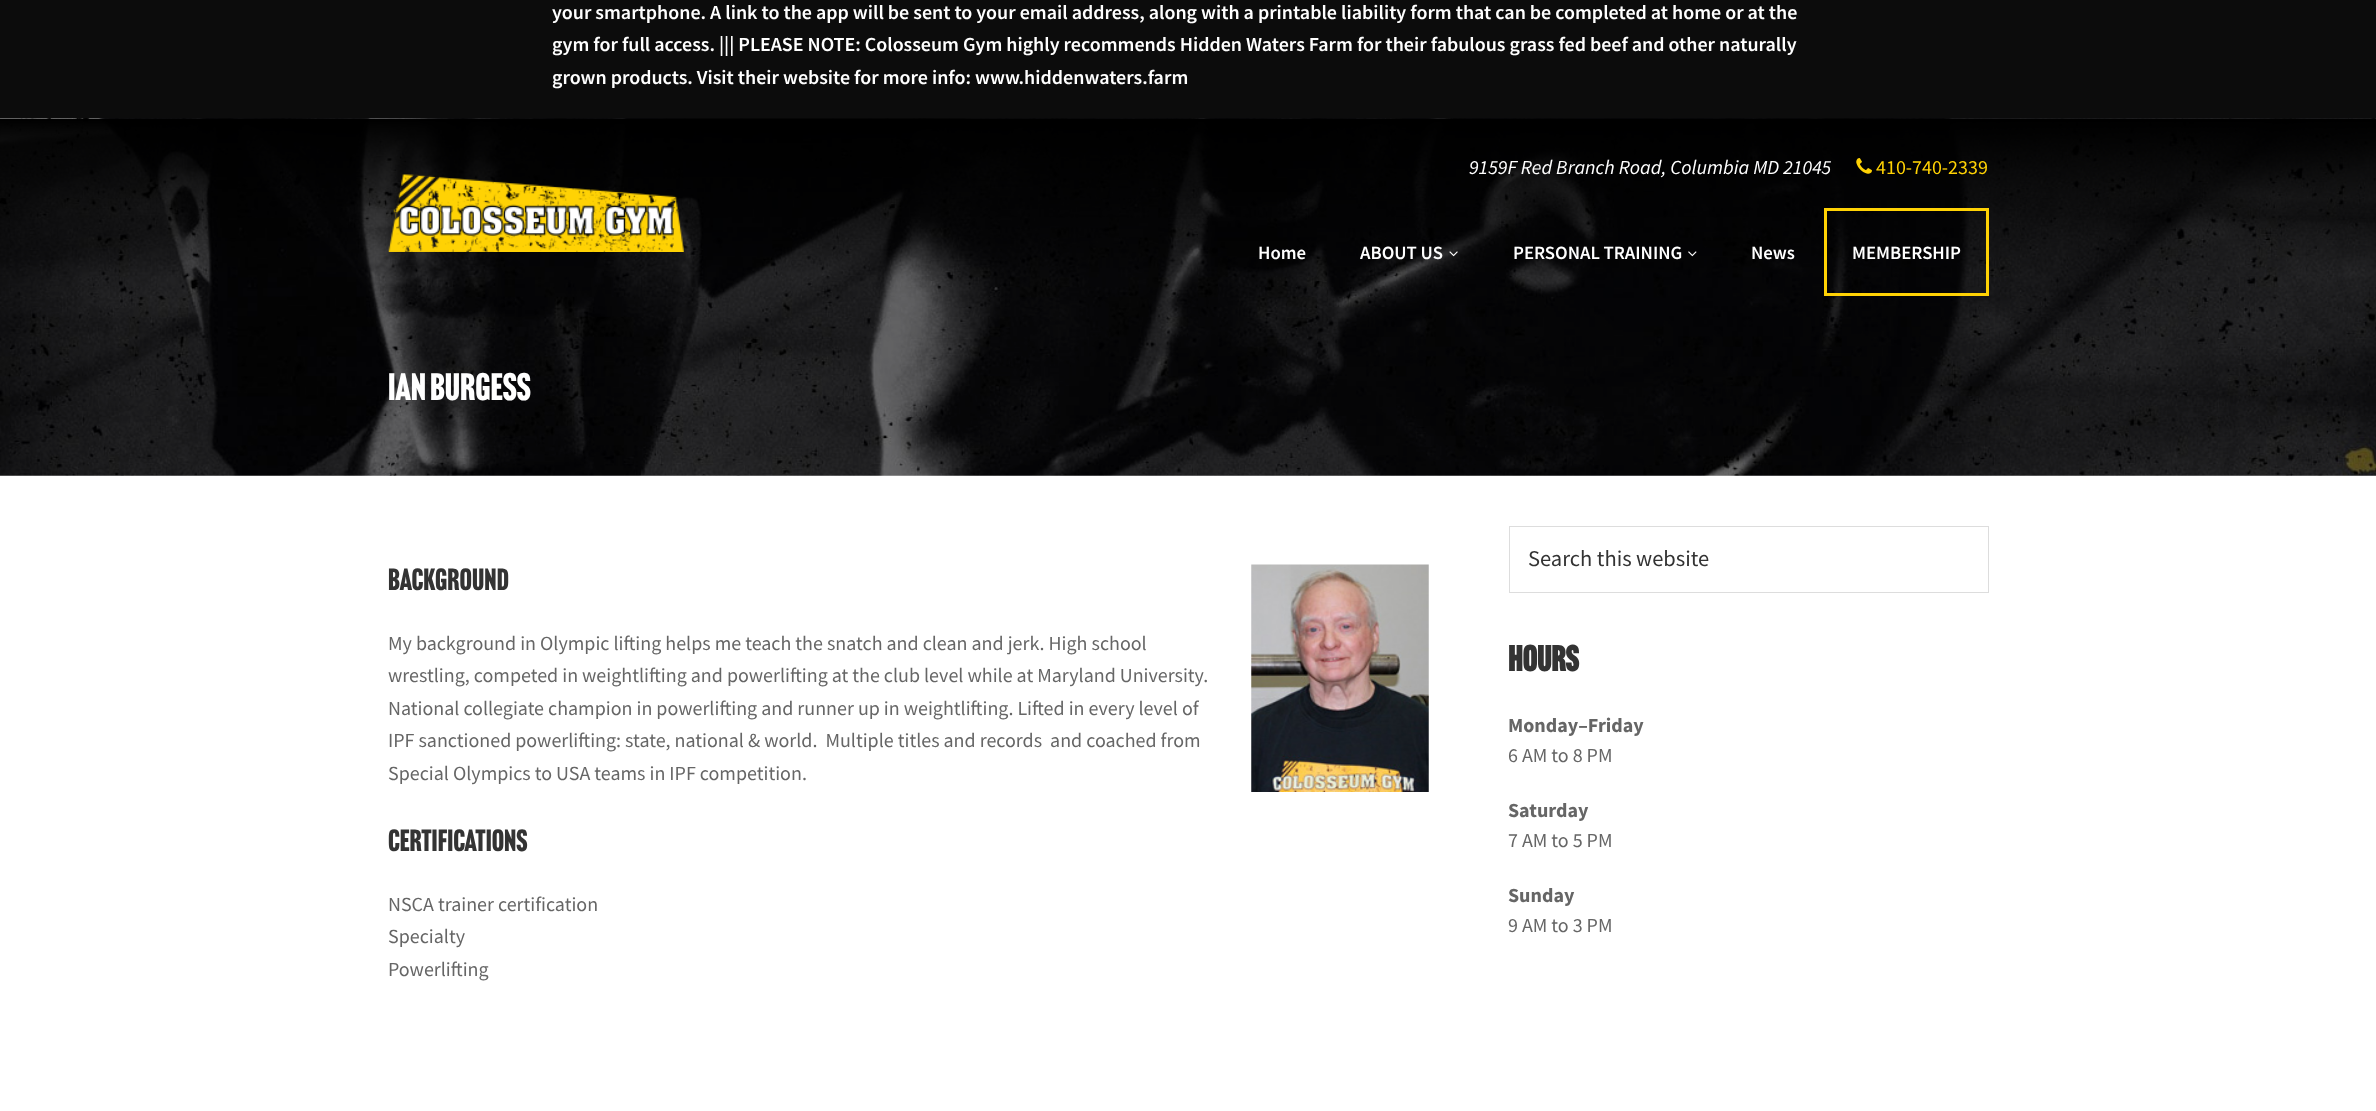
(async () => {
  const canvas = document.querySelector("canvas");
  canvas.width = 2376;
  canvas.height = 1111;
  const ctx = canvas.getContext("2d");
  ctx.miterLimit = 4;
  ctx.fontKerning = "normal";
  async function loadImage(src) {
    const img = new Image();
    img.src = src;
    await img.decode();
    return img;
  }

  ctx.fillStyle = "#ffffff";
  ctx.fillRect(0, 0, 2376, 1111);
  ctx.fillStyle = "#0c0c0c";
  ctx.fillRect(0, 0, 2376, 119);
  ctx.drawImage(await loadImage("img/5.png"), 0, 118, 2376, 358);
  ctx.drawImage(await loadImage("img/1.png"), 1856, 158, 16, 16);
  ctx.drawImage(await loadImage("img/2.png"), 388, 174, 296, 78);
  ctx.drawImage(await loadImage("img/3.png"), 1449, 251, 9, 6);
  ctx.drawImage(await loadImage("img/4.png"), 1688, 251, 9, 6);
  ctx.strokeStyle = "#ffd204";
  ctx.lineWidth = 3;
  ctx.strokeRect(1825.5, 209.5, 162, 85);
  ctx.drawImage(await loadImage("img/6.png"), 1251, 564, 178, 228);
  ctx.strokeStyle = "#dddddd";
  ctx.lineWidth = 1;
  ctx.strokeRect(1509.5, 526.5, 479, 66);
  ctx.font = "600 20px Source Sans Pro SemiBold";
  ctx.fillStyle = "#ffffff";
  for (const [text, x, y] of [
    ["your smartphone. A link to the app will be sent to your email address, along with a printable liability form that can be completed at home or at the", 552, 19],
    ["gym for full access. ||| PLEASE NOTE: Colosseum Gym highly recommends Hidden Waters Farm for their fabulous grass fed beef and other naturally", 552, 51],
    ["grown products. Visit their website for more info: www.hiddenwaters.farm", 552, 84],
  ]) {
    ctx.fillText(text, x, y);
  }
  ctx.font = "italic 20px Source Sans Pro";
  ctx.fillText("9159F Red Branch Road, Columbia MD 21045", 1469, 174);
  ctx.font = "20px Source Sans Pro";
  ctx.fillStyle = "#ffd204";
  ctx.fillText("410-740-2339", 1876, 174);
  ctx.font = "600 18.75px Source Sans Pro SemiBold";
  ctx.fillStyle = "#ffffff";
  for (const [text, x, y] of [
    ["Home", 1258, 259],
    ["ABOUT US", 1360, 259],
    ["PERSONAL TRAINING", 1513, 259],
    ["News", 1751, 259],
    ["MEMBERSHIP", 1852, 259],
  ]) {
    ctx.fillText(text, x, y);
  }
  ctx.font = "37.5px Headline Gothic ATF";
  ctx.fillText("Ian Burgess", 388, 400);
  ctx.font = "30px Headline Gothic ATF";
  ctx.fillStyle = "#333333";
  ctx.fillText("Background", 388, 590);
  ctx.font = "20px Source Sans Pro";
  ctx.fillStyle = "#666666";
  for (const [text, x, y] of [
    ["My background in Olympic lifting helps me teach the snatch and clean and jerk. High school", 388, 650],
    ["wrestling, competed in weightlifting and powerlifting at the club level while at Maryland University.", 388, 682],
    ["National collegiate champion in powerlifting and runner up in weightlifting. Lifted in every level of", 388, 715],
    ["IPF sanctioned powerlifting: state, national & world.  Multiple titles and records  and coached from", 388, 747],
    ["Special Olympics to USA teams in IPF competition.", 388, 780],
  ]) {
    ctx.fillText(text, x, y);
  }
  ctx.font = "30px Headline Gothic ATF";
  ctx.fillStyle = "#333333";
  ctx.fillText("Certifications", 388, 851);
  ctx.font = "20px Source Sans Pro";
  ctx.fillStyle = "#666666";
  for (const [text, x, y] of [
    ["NSCA trainer certification", 388, 911],
    ["Specialty", 388, 943],
    ["Powerlifting", 388, 976],
  ]) {
    ctx.fillText(text, x, y);
  }
  ctx.font = "22.5px Source Sans Pro";
  ctx.fillStyle = "#333333";
  ctx.fillText("Search this website", 1528, 566);
  ctx.font = "bold 35px Headline Gothic ATF";
  ctx.fillText("Hours", 1508, 671);
  ctx.font = "bold 20px Source Sans Pro";
  ctx.fillStyle = "#666666";
  ctx.fillText("Monday–Friday", 1508, 732);
  ctx.font = "20px Source Sans Pro";
  ctx.fillText("6 AM to 8 PM", 1508, 762);
  ctx.font = "bold 20px Source Sans Pro";
  ctx.fillText("Saturday", 1508, 817);
  ctx.font = "20px Source Sans Pro";
  ctx.fillText("7 AM to 5 PM", 1508, 847);
  ctx.font = "bold 20px Source Sans Pro";
  ctx.fillText("Sunday", 1508, 902);
  ctx.font = "20px Source Sans Pro";
  ctx.fillText("9 AM to 3 PM", 1508, 932);
})();
